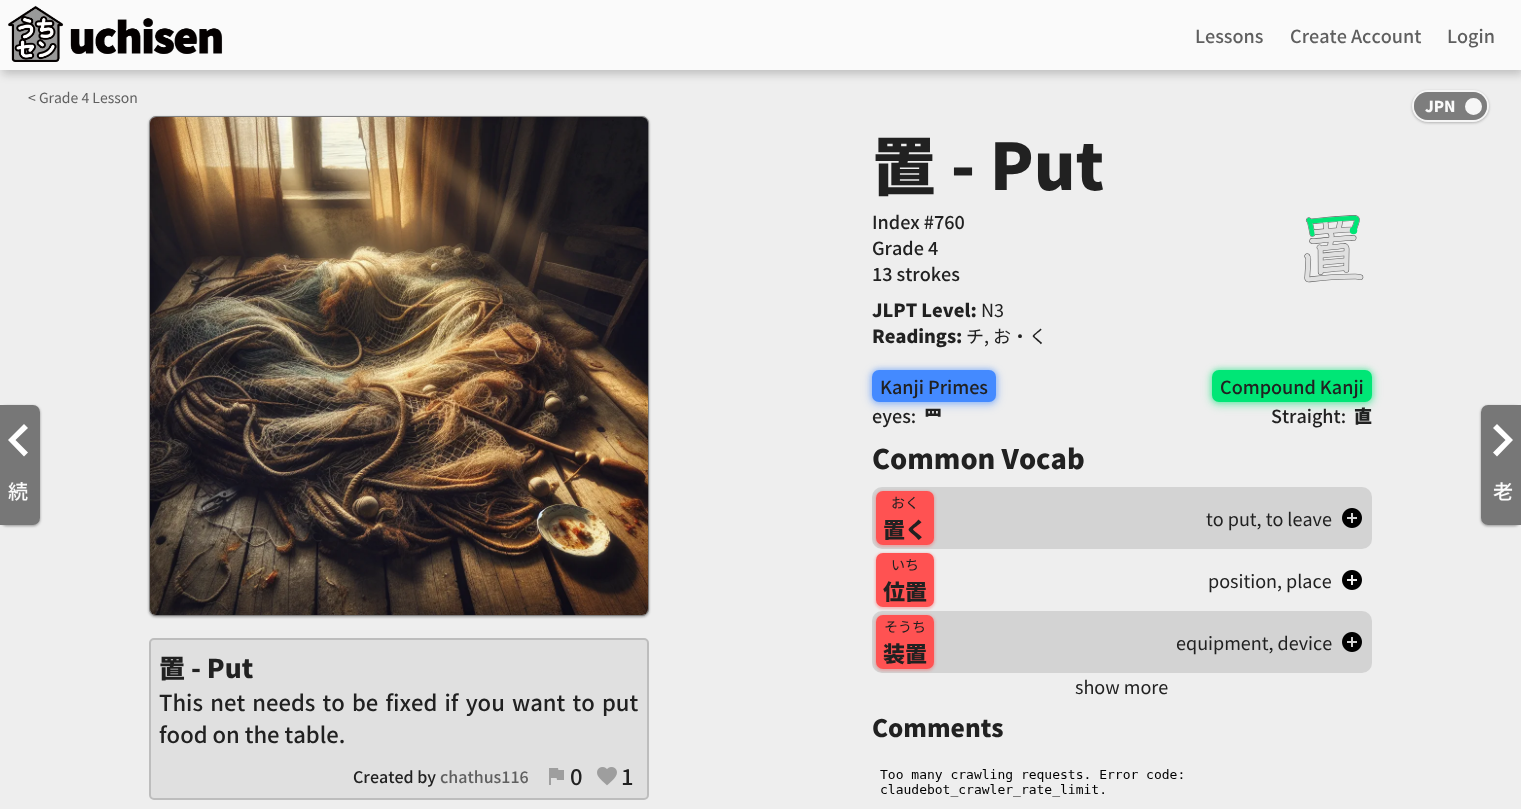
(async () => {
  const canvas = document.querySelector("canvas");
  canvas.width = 1521;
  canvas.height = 809;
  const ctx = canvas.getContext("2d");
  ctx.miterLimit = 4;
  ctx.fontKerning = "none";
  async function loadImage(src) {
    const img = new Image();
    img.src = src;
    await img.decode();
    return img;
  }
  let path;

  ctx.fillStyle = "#eeeeee";
  ctx.fillRect(0, 0, 1521, 809);
  ctx.fillStyle = "rgba(0, 0, 0, 0.2)";
  ctx.filter = "blur(5px)";
  ctx.beginPath();
  ctx.rect(2, 4, 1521, 70);
  ctx.fill();
  ctx.filter = "none";
  ctx.fillStyle = "#fafafa";
  ctx.fillRect(0, 0, 1521, 70);
  ctx.drawImage(await loadImage("img/1.png"), 8, 5, 215, 57);
  ctx.fillStyle = "rgba(71, 71, 71, 0.24)";
  ctx.filter = "blur(1px)";
  ctx.beginPath();
  ctx.roundRect(1412, 91, 77, 32, 16);
  ctx.fill();
  ctx.filter = "none";
  ctx.fillStyle = "rgba(71, 71, 71, 0.12)";
  ctx.filter = "blur(1.5px)";
  ctx.beginPath();
  ctx.roundRect(1412, 91, 77, 32, 16);
  ctx.fill();
  ctx.filter = "none";
  ctx.beginPath();
  ctx.roundRect(1413, 91, 75, 30, 15);
  ctx.strokeStyle = "#f6f6f6";
  ctx.lineWidth = 2;
  ctx.stroke();
  ctx.fillStyle = "#7d7d7d";
  ctx.beginPath();
  ctx.roundRect(1414, 92, 73, 28, 14);
  ctx.fill();
  ctx.fillStyle = "#f6f6f6";
  ctx.beginPath();
  ctx.arc(1473.5, 106.5, 7.5, 0, Math.PI * 2);
  ctx.fill();
  ctx.stroke();
  ctx.save();
  path = new Path2D("M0 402H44V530H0ZM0 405H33C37 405 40 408 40 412V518C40 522 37 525 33 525H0Z");
  ctx.clip(path, "evenodd");
  ctx.fillStyle = "rgba(0, 0, 0, 0.18)";
  ctx.filter = "blur(1px)";
  ctx.beginPath();
  ctx.roundRect(0, 406, 40, 120, 7);
  ctx.fill();
  ctx.filter = "none";
  ctx.restore();
  ctx.save();
  path = new Path2D("M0 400H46V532H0ZM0 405H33C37 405 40 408 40 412V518C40 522 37 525 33 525H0Z");
  ctx.clip(path, "evenodd");
  ctx.fillStyle = "rgba(0, 0, 0, 0.22)";
  ctx.filter = "blur(1.5px)";
  ctx.beginPath();
  ctx.roundRect(0, 406, 40, 120, 7);
  ctx.fill();
  ctx.filter = "none";
  ctx.restore();
  ctx.fillStyle = "rgba(0, 0, 0, 0.5)";
  ctx.beginPath();
  ctx.roundRect(0, 405, 40, 120, [0, 7, 7, 0]);
  ctx.fill();
  ctx.fillStyle = "#ffffff";
  path = new Path2D("M28 428L24 424L8 440L24 456.5L28 452.5L15.5 440Z");
  ctx.fill(path);
  ctx.fillStyle = "rgba(0, 0, 0, 0.24)";
  ctx.filter = "blur(1px)";
  ctx.beginPath();
  ctx.roundRect(149, 117, 500, 500, 7);
  ctx.fill();
  ctx.filter = "none";
  ctx.fillStyle = "rgba(0, 0, 0, 0.12)";
  ctx.filter = "blur(1.5px)";
  ctx.beginPath();
  ctx.roundRect(149, 117, 500, 500, 7);
  ctx.fill();
  ctx.filter = "none";
  ctx.beginPath();
  ctx.roundRect(149.5, 116.5, 499, 499, 6.5);
  ctx.strokeStyle = "#808080";
  ctx.lineWidth = 1;
  ctx.stroke();
  ctx.drawImage(await loadImage("img/2.png"), 150, 117, 498, 498);
  ctx.fillStyle = "#e0e0e0";
  ctx.beginPath();
  ctx.roundRect(150, 639, 498, 160, 4);
  ctx.fill();
  ctx.strokeStyle = "#bdbdbd";
  ctx.lineWidth = 2;
  ctx.stroke();
  ctx.drawImage(await loadImage("img/3.png"), 549, 768, 15, 17);
  ctx.drawImage(await loadImage("img/4.png"), 597, 767, 20, 19);
  ctx.drawImage(await loadImage("img/5.png"), 1304, 215, 60, 68);
  ctx.fillStyle = "rgba(68, 138, 255, 0.39)";
  ctx.filter = "blur(2.5px)";
  ctx.beginPath();
  ctx.roundRect(871, 369, 126, 34, 8);
  ctx.fill();
  ctx.filter = "none";
  ctx.fillStyle = "rgba(68, 138, 255, 0.29)";
  ctx.filter = "blur(4px)";
  ctx.beginPath();
  ctx.roundRect(870, 370, 128, 36, 9);
  ctx.fill();
  ctx.filter = "none";
  ctx.fillStyle = "#448aff";
  ctx.beginPath();
  ctx.roundRect(872, 370, 124, 32, 7);
  ctx.fill();
  ctx.fillStyle = "rgba(0, 230, 118, 0.39)";
  ctx.filter = "blur(2.5px)";
  ctx.beginPath();
  ctx.roundRect(1211, 369, 162, 34, 8);
  ctx.fill();
  ctx.filter = "none";
  ctx.fillStyle = "rgba(0, 230, 118, 0.29)";
  ctx.filter = "blur(4px)";
  ctx.beginPath();
  ctx.roundRect(1210, 370, 164, 36, 9);
  ctx.fill();
  ctx.filter = "none";
  ctx.fillStyle = "#00e676";
  ctx.beginPath();
  ctx.roundRect(1212, 370, 160, 32, 7);
  ctx.fill();
  ctx.fillStyle = "#d3d3d3";
  ctx.beginPath();
  ctx.roundRect(872, 487, 500, 62, 10);
  ctx.fill();
  ctx.fillStyle = "rgba(255, 82, 82, 0.24)";
  ctx.filter = "blur(1px)";
  ctx.beginPath();
  ctx.roundRect(875, 491, 60, 56, 8);
  ctx.fill();
  ctx.filter = "none";
  ctx.fillStyle = "rgba(255, 82, 82, 0.12)";
  ctx.filter = "blur(1.5px)";
  ctx.beginPath();
  ctx.roundRect(875, 491, 60, 56, 8);
  ctx.fill();
  ctx.filter = "none";
  ctx.fillStyle = "#ff5252";
  ctx.beginPath();
  ctx.roundRect(876, 491, 58, 54, 7);
  ctx.fill();
  ctx.drawImage(await loadImage("img/6.png"), 1342, 508, 20, 20);
  ctx.fillStyle = "rgba(255, 82, 82, 0.24)";
  ctx.filter = "blur(1px)";
  ctx.beginPath();
  ctx.roundRect(875, 553, 60, 56, 8);
  ctx.fill();
  ctx.filter = "none";
  ctx.fillStyle = "rgba(255, 82, 82, 0.12)";
  ctx.filter = "blur(1.5px)";
  ctx.beginPath();
  ctx.roundRect(875, 553, 60, 56, 8);
  ctx.fill();
  ctx.filter = "none";
  ctx.fillStyle = "#ff5252";
  ctx.beginPath();
  ctx.roundRect(876, 553, 58, 54, 7);
  ctx.fill();
  ctx.drawImage(await loadImage("img/7.png"), 1342, 570, 20, 20);
  ctx.fillStyle = "#d3d3d3";
  ctx.beginPath();
  ctx.roundRect(872, 611, 500, 62, 10);
  ctx.fill();
  ctx.fillStyle = "rgba(255, 82, 82, 0.24)";
  ctx.filter = "blur(1px)";
  ctx.beginPath();
  ctx.roundRect(875, 615, 60, 56, 8);
  ctx.fill();
  ctx.filter = "none";
  ctx.fillStyle = "rgba(255, 82, 82, 0.12)";
  ctx.filter = "blur(1.5px)";
  ctx.beginPath();
  ctx.roundRect(875, 615, 60, 56, 8);
  ctx.fill();
  ctx.filter = "none";
  ctx.fillStyle = "#ff5252";
  ctx.beginPath();
  ctx.roundRect(876, 615, 58, 54, 7);
  ctx.fill();
  ctx.drawImage(await loadImage("img/6.png"), 1342, 632, 20, 20);
  ctx.drawImage(await loadImage("img/8.png"), 880, 769, 303, 28);
  ctx.save();
  path = new Path2D("M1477 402H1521V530H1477ZM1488 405H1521V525H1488C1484 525 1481 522 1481 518V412C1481 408 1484 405 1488 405Z");
  ctx.clip(path, "evenodd");
  ctx.fillStyle = "rgba(0, 0, 0, 0.18)";
  ctx.filter = "blur(1px)";
  ctx.beginPath();
  ctx.roundRect(1481, 406, 40, 120, 7);
  ctx.fill();
  ctx.filter = "none";
  ctx.restore();
  ctx.save();
  path = new Path2D("M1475 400H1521V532H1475ZM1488 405H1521V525H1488C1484 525 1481 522 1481 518V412C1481 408 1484 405 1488 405Z");
  ctx.clip(path, "evenodd");
  ctx.fillStyle = "rgba(0, 0, 0, 0.22)";
  ctx.filter = "blur(1.5px)";
  ctx.beginPath();
  ctx.roundRect(1481, 406, 40, 120, 7);
  ctx.fill();
  ctx.filter = "none";
  ctx.restore();
  ctx.fillStyle = "rgba(0, 0, 0, 0.5)";
  ctx.beginPath();
  ctx.roundRect(1481, 405, 40, 120, [7, 0, 0, 7]);
  ctx.fill();
  ctx.fillStyle = "#ffffff";
  path = new Path2D("M1497 424L1493 428L1505.5 440L1493 452.5L1497 456.5L1513 440Z");
  ctx.fill(path);
  ctx.font = "500 18px Noto Sans JP";
  ctx.fillStyle = "#5f5f5f";
  for (const [text, x, y] of [
    ["Lessons", 1195, 43],
    ["Create Account", 1290, 43],
    ["Login", 1447, 43],
  ]) {
    ctx.fillText(text, x, y);
  }
  ctx.font = "900 15px Noto Sans JP";
  ctx.fillStyle = "#fafafa";
  ctx.fillText("JPN", 1425, 112);
  ctx.font = "500 20px Noto Sans JP";
  ctx.fillText("続", 8, 499);
  ctx.font = "14px Noto Sans JP";
  ctx.fillStyle = "#5f5f5f";
  ctx.fillText("< Grade 4 Lesson", 28, 103);
  ctx.font = "900 26px Noto Sans JP";
  ctx.fillStyle = "#212121";
  ctx.fillText("置 - Put", 159, 678);
  ctx.wordSpacing = "2.25px";
  ctx.font = "500 22px Noto Sans JP";
  ctx.fillText("This net needs to be fixed if you want to put", 159, 711);
  ctx.wordSpacing = "0px";
  ctx.fillText("food on the table.", 159, 743);
  ctx.font = "500 16px Noto Sans JP";
  ctx.fillText("Created by", 353, 783);
  ctx.fillStyle = "#5f5f5f";
  ctx.fillText("chathus116", 440, 783);
  ctx.font = "500 22px Noto Sans JP";
  ctx.fillStyle = "#212121";
  ctx.fillText("0", 570, 785);
  ctx.fillText("1", 621, 785);
  ctx.font = "900 64px Noto Sans JP";
  ctx.fillText("置 - Put", 872, 190);
  ctx.font = "500 18px Noto Sans JP";
  for (const [text, x, y] of [
    ["Index #760", 872, 229],
    ["Grade 4", 872, 255],
    ["13 strokes", 872, 281],
  ]) {
    ctx.fillText(text, x, y);
  }
  ctx.font = "900 18px Noto Sans JP";
  ctx.fillText("JLPT Level:", 872, 317);
  ctx.font = "18px Noto Sans JP";
  ctx.fillText("N3", 981, 317);
  ctx.font = "900 18px Noto Sans JP";
  ctx.fillText("Readings:", 872, 343);
  ctx.font = "18px Noto Sans JP";
  ctx.fillText("チ, お・く", 966, 343);
  ctx.font = "500 18px Noto Sans JP";
  ctx.fillText("Kanji Primes", 880, 394);
  ctx.fillText("eyes:", 872, 423);
  ctx.font = "900 18px Noto Sans JP";
  ctx.fillText("罒", 924, 423);
  ctx.font = "500 18px Noto Sans JP";
  ctx.fillText("Compound Kanji", 1220, 394);
  ctx.fillText("Straight:", 1271, 423);
  ctx.font = "900 18px Noto Sans JP";
  ctx.fillText("直", 1354, 423);
  ctx.font = "900 27px Noto Sans JP";
  ctx.fillText("Common Vocab", 872, 469);
  ctx.font = "14px Noto Sans JP";
  ctx.fillText("おく", 891, 508);
  ctx.font = "900 22px Noto Sans JP";
  ctx.fillText("置く", 883, 538);
  ctx.font = "18px Noto Sans JP";
  ctx.fillText("to put, to leave", 1206, 526);
  ctx.font = "14px Noto Sans JP";
  ctx.fillText("いち", 891, 570);
  ctx.font = "900 22px Noto Sans JP";
  ctx.fillText("位置", 883, 600);
  ctx.font = "18px Noto Sans JP";
  ctx.fillText("position, place", 1208, 588);
  ctx.font = "14px Noto Sans JP";
  ctx.fillText("そうち", 884, 632);
  ctx.font = "900 22px Noto Sans JP";
  ctx.fillText("装置", 883, 662);
  ctx.font = "18px Noto Sans JP";
  ctx.fillText("equipment, device", 1176, 650);
  ctx.fillText("show more", 1075, 694);
  ctx.font = "900 24px Noto Sans JP";
  ctx.fillText("Comments", 872, 737);
  ctx.font = "500 20px Noto Sans JP";
  ctx.fillStyle = "#fafafa";
  ctx.fillText("老", 1493, 499);
})();
